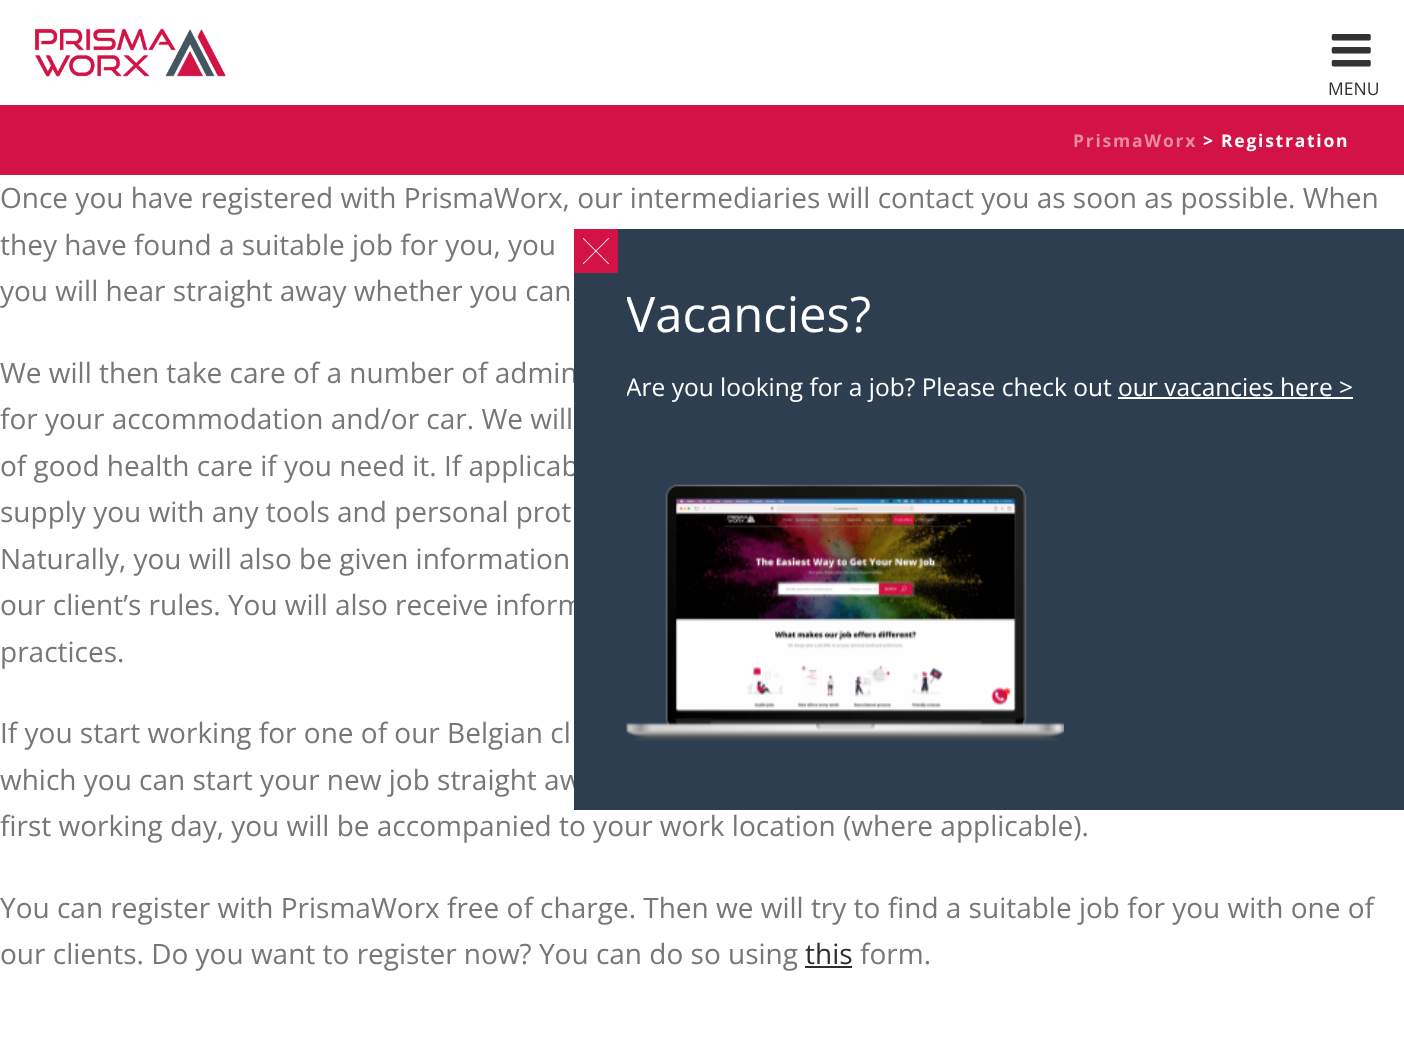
(async () => {
  const canvas = document.querySelector("canvas");
  canvas.width = 1404;
  canvas.height = 1038;
  const ctx = canvas.getContext("2d");
  ctx.miterLimit = 4;
  ctx.fontKerning = "normal";
  async function loadImage(src) {
    const img = new Image();
    img.src = src;
    await img.decode();
    return img;
  }

  ctx.fillStyle = "#ffffff";
  ctx.fillRect(0, 0, 1404, 1038);
  ctx.drawImage(await loadImage("img/1.png"), 1331, 34, 40, 33);
  ctx.fillStyle = "#d31245";
  ctx.fillRect(0, 105, 1404, 70);
  ctx.drawImage(await loadImage("img/2.png"), 35, 28, 191, 49);
  ctx.fillStyle = "#2e2e2e";
  ctx.fillRect(805, 966, 47, 2);
  ctx.font = "17.5px Open Sans";
  ctx.fillText("MENU", 1328, 95);
  ctx.letterSpacing = "1.75px";
  ctx.font = "bold 17.5px Open Sans";
  ctx.fillStyle = "#e989a2";
  ctx.fillText("PrismaWorx", 1073, 147);
  ctx.fillStyle = "#ffffff";
  ctx.fillText("> Registration", 1203, 147);
  ctx.letterSpacing = "0px";
  ctx.font = "28px Open Sans";
  ctx.fillStyle = "#777777";
  for (const [text, x, y] of [
    ["Once you have registered with PrismaWorx, our intermediaries will contact you as soon as possible. When", 0, 208],
    ["they have found a suitable job for you, you", 0, 255],
    ["you will hear straight away whether you can", 0, 301],
    ["We will then take care of a number of admin", 0, 383],
    ["for your accommodation and/or car. We will", 0, 429],
    ["of good health care if you need it. If applicab", 0, 476],
    ["supply you with any tools and personal prot", 0, 522],
    ["Naturally, you will also be given information", 0, 569],
    ["our client’s rules. You will also receive inform", 0, 615],
    ["practices.", 0, 662],
    ["If you start working for one of our Belgian cl", 0, 743],
    ["which you can start your new job straight aw", 0, 790],
    ["first working day, you will be accompanied to your work location (where applicable).", 0, 836],
    ["You can register with PrismaWorx free of charge. Then we will try to find a suitable job for you with one of", 0, 918],
    ["our clients. Do you want to register now? You can do so using", 0, 964],
  ]) {
    ctx.fillText(text, x, y);
  }
  ctx.fillStyle = "#2e2e2e";
  ctx.fillText("this", 805, 964);
  ctx.fillStyle = "#777777";
  ctx.fillText("form.", 860, 964);
  ctx.fillStyle = "#2d3e50";
  ctx.fillRect(574, 229, 830, 581);
  ctx.fillStyle = "#d31245";
  ctx.fillRect(574, 229, 44, 44);
  ctx.drawImage(await loadImage("img/3.png"), 583, 238, 26, 27);
  ctx.save();
  ctx.beginPath();
  ctx.rect(627, 282, 726, 476);
  ctx.clip();
  ctx.font = "49px Open Sans";
  ctx.fillStyle = "#ffffff";
  ctx.fillText("Vacancies?", 626, 332);
  ctx.font = "24.5px Open Sans";
  ctx.fillText("Are you looking for a job? Please check out", 626, 396);
  ctx.restore();
  ctx.font = "24.5px Open Sans";
  ctx.fillStyle = "#ffffff";
  ctx.fillText("our vacancies here >", 1118, 396);
  ctx.fillRect(1118, 397, 235, 2);
  ctx.drawImage(await loadImage("img/4.png"), 626, 484, 438, 257);
})();
